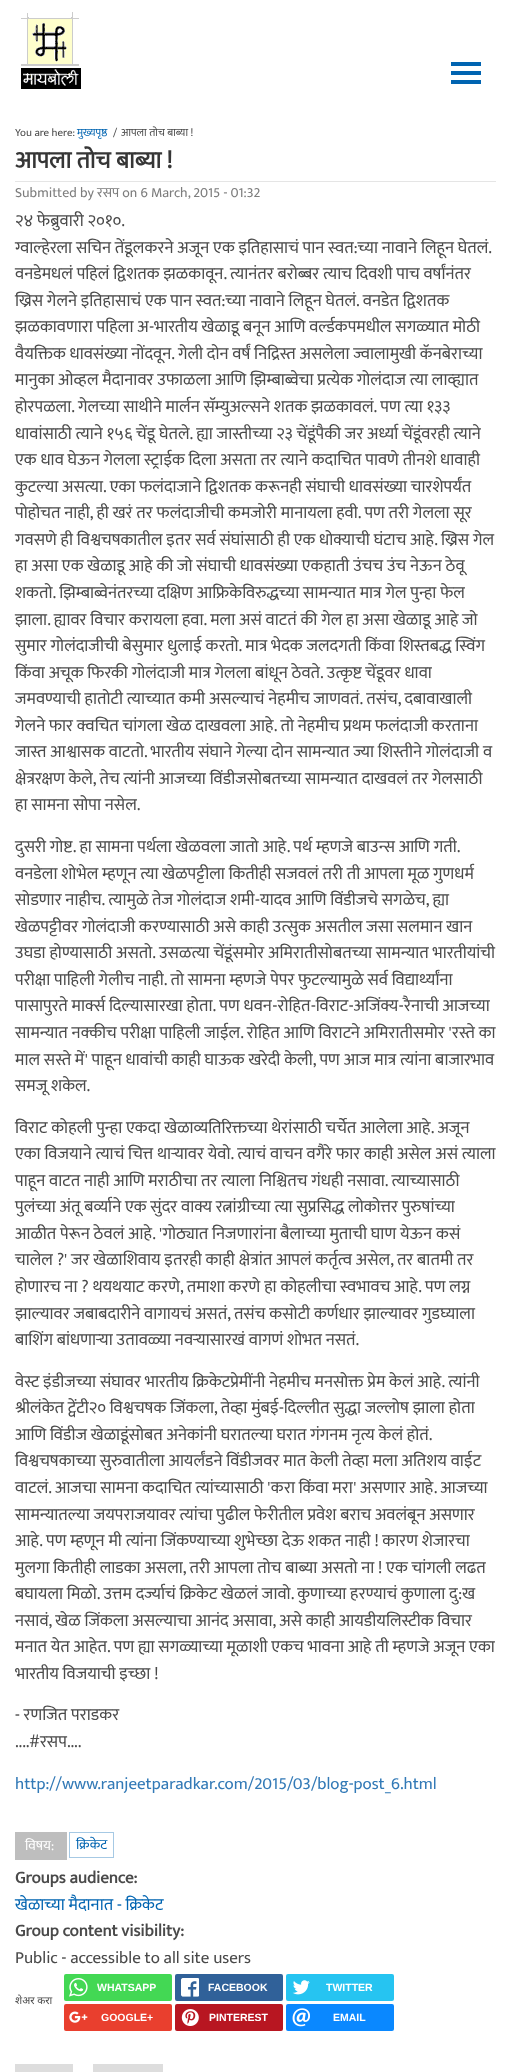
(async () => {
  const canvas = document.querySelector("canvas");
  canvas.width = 511;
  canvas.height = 2072;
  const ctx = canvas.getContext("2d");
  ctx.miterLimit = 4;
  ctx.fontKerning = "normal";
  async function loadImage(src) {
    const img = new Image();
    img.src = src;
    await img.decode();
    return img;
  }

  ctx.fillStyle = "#ffffff";
  ctx.fillRect(0, 0, 511, 2072);
  ctx.drawImage(await loadImage("img/1.png"), 21, 12, 60, 77);
  for (const [x, y, w, h, color] of [
    [451, 62, 30, 4, "#0064b1"],
    [451, 71, 30, 4, "#0064b1"],
    [451, 80, 30, 4, "#0064b1"],
    [15, 181, 481, 1, "#e5e5e5"],
    [15, 1832, 52, 28, "#bebebe"],
  ]) {
    ctx.fillStyle = color;
    ctx.fillRect(x, y, w, h);
  }
  ctx.strokeStyle = "#a6c9e4";
  ctx.strokeRect(69.5, 1832.5, 44, 25);
  ctx.fillStyle = "#43d854";
  ctx.beginPath();
  ctx.roundRect(64, 1974, 108, 27, 2);
  ctx.fill();
  ctx.drawImage(await loadImage("img/2.png"), 69, 1978, 19, 19);
  ctx.fillStyle = "#306199";
  ctx.beginPath();
  ctx.roundRect(175, 1974, 108, 27, 2);
  ctx.fill();
  ctx.drawImage(await loadImage("img/3.png"), 181, 1978, 18, 19);
  ctx.fillStyle = "#26c4f1";
  ctx.beginPath();
  ctx.roundRect(286, 1974, 108, 27, 2);
  ctx.fill();
  ctx.drawImage(await loadImage("img/4.png"), 292, 1980, 18, 15);
  ctx.fillStyle = "#e93f2e";
  ctx.beginPath();
  ctx.roundRect(64, 2004, 108, 27, 2);
  ctx.fill();
  ctx.drawImage(await loadImage("img/5.png"), 69, 2011, 19, 12);
  ctx.fillStyle = "#b81621";
  ctx.beginPath();
  ctx.roundRect(175, 2004, 108, 27, 2);
  ctx.fill();
  ctx.drawImage(await loadImage("img/6.png"), 181, 2009, 18, 17);
  ctx.fillStyle = "#0a88ff";
  ctx.beginPath();
  ctx.roundRect(286, 2004, 108, 27, 2);
  ctx.fill();
  ctx.drawImage(await loadImage("img/7.png"), 292, 2008, 18, 19);
  ctx.fillStyle = "#dddddd";
  ctx.fillRect(15, 2064, 58, 8);
  ctx.fillRect(93, 2064, 70, 8);
  ctx.font = "11px Ek Mukta";
  ctx.fillStyle = "#4a4a4a";
  ctx.fillText("You are here:", 15, 136);
  ctx.fillStyle = "#0064b1";
  ctx.fillText("मुख्यपृष्ठ", 77, 136);
  ctx.fillStyle = "#4a4a4a";
  ctx.fillText("/", 113, 136);
  ctx.fillText("आपला तोच बाब्या !", 121, 136);
  ctx.font = "bold 24px Ek Mukta";
  ctx.fillStyle = "#363636";
  ctx.fillText("आपला तोच बाब्या !", 15, 168);
  ctx.font = "14px Ek Mukta";
  ctx.fillStyle = "#7d7d7d";
  ctx.fillText("Submitted by रसप on 6 March, 2015 - 01:32", 15, 197);
  ctx.font = "17px Ek Mukta";
  ctx.fillStyle = "#4a4a4a";
  for (const [text, x, y] of [
    ["२४ फेब्रुवारी २०१०.", 15, 226],
    ["ग्वाल्हेरला सचिन तेंडूलकरने अजून एक इतिहासाचं पान स्वत:च्या नावाने लिहून घेतलं.", 15, 253],
    ["वनडेमधलं पहिलं द्विशतक झळकावून. त्यानंतर बरोब्बर त्याच दिवशी पाच वर्षांनंतर", 15, 279],
    ["ख्रिस गेलने इतिहासाचं एक पान स्वत:च्या नावाने लिहून घेतलं. वनडेत द्विशतक", 15, 306],
    ["झळकावणारा पहिला अ-भारतीय खेळाडू बनून आणि वर्ल्डकपमधील सगळ्यात मोठी", 15, 332],
    ["वैयक्तिक धावसंख्या नोंदवून. गेली दोन वर्षं निद्रिस्त असलेला ज्वालामुखी कॅनबेराच्या", 15, 359],
    ["मानुका ओव्हल मैदानावर उफाळला आणि झिम्बाब्वेचा प्रत्येक गोलंदाज त्या लाव्ह्यात", 15, 385],
    ["होरपळला. गेलच्या साथीने मार्लन सॅम्युअल्सने शतक झळकावलं. पण त्या १३३", 15, 412],
    ["धावांसाठी त्याने १५६ चेंडू घेतले. ह्या जास्तीच्या २३ चेंडूंपैकी जर अर्ध्या चेंडूंवरही त्याने", 15, 439],
    ["एक धाव घेऊन गेलला स्ट्राईक दिला असता तर त्याने कदाचित पावणे तीनशे धावाही", 15, 465],
    ["कुटल्या असत्या. एका फलंदाजाने द्विशतक करूनही संघाची धावसंख्या चारशेपर्यंत", 15, 492],
    ["पोहोचत नाही, ही खरं तर फलंदाजीची कमजोरी मानायला हवी. पण तरी गेलला सूर", 15, 518],
    ["गवसणे ही विश्वचषकातील इतर सर्व संघांसाठी ही एक धोक्याची घंटाच आहे. ख्रिस गेल", 15, 545],
    ["हा असा एक खेळाडू आहे की जो संघाची धावसंख्या एकहाती उंचच उंच नेऊन ठेवू", 15, 571],
    ["शकतो. झिम्बाब्वेनंतरच्या दक्षिण आफ्रिकेविरुद्धच्या सामन्यात मात्र गेल पुन्हा फेल", 15, 598],
    ["झाला. ह्यावर विचार करायला हवा. मला असं वाटतं की गेल हा असा खेळाडू आहे जो", 15, 625],
    ["सुमार गोलंदाजीची बेसुमार धुलाई करतो. मात्र भेदक जलदगती किंवा शिस्तबद्ध स्विंग", 15, 651],
    ["किंवा अचूक फिरकी गोलंदाजी मात्र गेलला बांधून ठेवते. उत्कृष्ट चेंडूवर धावा", 15, 678],
    ["जमवण्याची हातोटी त्याच्यात कमी असल्याचं नेहमीच जाणवतं. तसंच, दबावाखाली", 15, 704],
    ["गेलने फार क्वचित चांगला खेळ दाखवला आहे. तो नेहमीच प्रथम फलंदाजी करताना", 15, 731],
    ["जास्त आश्वासक वाटतो. भारतीय संघाने गेल्या दोन सामन्यात ज्या शिस्तीने गोलंदाजी व", 15, 757],
    ["क्षेत्ररक्षण केले, तेच त्यांनी आजच्या विंडीजसोबतच्या सामन्यात दाखवलं तर गेलसाठी", 15, 784],
    ["हा सामना सोपा नसेल.", 15, 810],
    ["दुसरी गोष्ट. हा सामना पर्थला खेळवला जातो आहे. पर्थ म्हणजे बाउन्स आणि गती.", 15, 852],
    ["वनडेला शोभेल म्हणून त्या खेळपट्टीला कितीही सजवलं तरी ती आपला मूळ गुणधर्म", 15, 879],
    ["सोडणार नाहीच. त्यामुळे तेज गोलंदाज शमी-यादव आणि विंडीजचे सगळेच, ह्या", 15, 905],
    ["खेळपट्टीवर गोलंदाजी करण्यासाठी असे काही उत्सुक असतील जसा सलमान खान", 15, 932],
    ["उघडा होण्यासाठी असतो. उसळत्या चेंडूंसमोर अमिरातीसोबतच्या सामन्यात भारतीयांची", 15, 958],
    ["परीक्षा पाहिली गेलीच नाही. तो सामना म्हणजे पेपर फुटल्यामुळे सर्व विद्यार्थ्यांना", 15, 985],
    ["पासापुरते मार्क्स दिल्यासारखा होता. पण धवन-रोहित-विराट-अजिंक्य-रैनाची आजच्या", 15, 1011],
    ["सामन्यात नक्कीच परीक्षा पाहिली जाईल. रोहित आणि विराटने अमिरातीसमोर 'रस्ते का", 15, 1038],
    ["माल सस्ते में' पाहून धावांची काही घाऊक खरेदी केली, पण आज मात्र त्यांना बाजारभाव", 15, 1065],
    ["समजू शकेल.", 15, 1091],
    ["विराट कोहली पुन्हा एकदा खेळाव्यतिरिक्तच्या थेरांसाठी चर्चेत आलेला आहे. अजून", 15, 1133],
    ["एका विजयाने त्याचं चित्त थाऱ्यावर येवो. त्याचं वाचन वगैरे फार काही असेल असं त्याला", 15, 1159],
    ["पाहून वाटत नाही आणि मराठीचा तर त्याला निश्चितच गंधही नसावा. त्याच्यासाठी", 15, 1186],
    ["पुलंच्या अंतू बर्व्याने एक सुंदर वाक्य रत्नांग्रीच्या त्या सुप्रसिद्ध लोकोत्तर पुरुषांच्या", 15, 1212],
    ["आळीत पेरून ठेवलं आहे. 'गोठ्यात निजणारांना बैलाच्या मुताची घाण येऊन कसं", 15, 1239],
    ["चालेल ?' जर खेळाशिवाय इतरही काही क्षेत्रांत आपलं कर्तृत्व असेल, तर बातमी तर", 15, 1265],
    ["होणारच ना ? थयथयाट करणे, तमाशा करणे हा कोहलीचा स्वभावच आहे. पण लग्न", 15, 1292],
    ["झाल्यावर जबाबदारीने वागायचं असतं, तसंच कसोटी कर्णधार झाल्यावर गुडघ्याला", 15, 1319],
    ["बाशिंग बांधणाऱ्या उतावळ्या नवऱ्यासारखं वागणं शोभत नसतं.", 15, 1345],
    ["वेस्ट इंडीजच्या संघावर भारतीय क्रिकेटप्रेमींनी नेहमीच मनसोक्त प्रेम केलं आहे. त्यांनी", 15, 1387],
    ["श्रीलंकेत ट्वेंटी२० विश्वचषक जिंकला, तेव्हा मुंबई-दिल्लीत सुद्धा जल्लोष झाला होता", 15, 1413],
    ["आणि विंडीज खेळाडूंसोबत अनेकांनी घरातल्या घरात गंगनम नृत्य केलं होतं.", 15, 1440],
    ["विश्वचषकाच्या सुरुवातीला आयर्लंडने विंडीजवर मात केली तेव्हा मला अतिशय वाईट", 15, 1466],
    ["वाटलं. आजचा सामना कदाचित त्यांच्यासाठी 'करा किंवा मरा' असणार आहे. आजच्या", 15, 1493],
    ["सामन्यातल्या जयपराजयावर त्यांचा पुढील फेरीतील प्रवेश बराच अवलंबून असणार", 15, 1520],
    ["आहे. पण म्हणून मी त्यांना जिंकण्याच्या शुभेच्छा देऊ शकत नाही ! कारण शेजारचा", 15, 1546],
    ["मुलगा कितीही लाडका असला, तरी आपला तोच बाब्या असतो ना ! एक चांगली लढत", 15, 1573],
    ["बघायला मिळो. उत्तम दर्ज्याचं क्रिकेट खेळलं जावो. कुणाच्या हरण्याचं कुणाला दु:ख", 15, 1599],
    ["नसावं, खेळ जिंकला असल्याचा आनंद असावा, असे काही आयडीयलिस्टीक विचार", 15, 1626],
    ["मनात येत आहेत. पण ह्या सगळ्याच्या मूळाशी एकच भावना आहे ती म्हणजे अजून एका", 15, 1652],
    ["भारतीय विजयाची इच्छा !", 15, 1679],
    ["- रणजित पराडकर", 15, 1720],
    ["....#रसप....", 15, 1747],
  ]) {
    ctx.fillText(text, x, y);
  }
  ctx.fillStyle = "#337ab7";
  ctx.fillText("http://www.ranjeetparadkar.com/2015/03/blog-post_6.html", 15, 1789);
  ctx.font = "14px Ek Mukta";
  ctx.fillStyle = "#ffffff";
  ctx.fillText("विषय:", 25, 1850);
  ctx.fillStyle = "#0064b1";
  ctx.fillText("क्रिकेट", 76, 1849);
  ctx.font = "bold 17px Ek Mukta";
  ctx.fillStyle = "#4a4a4a";
  ctx.fillText("Groups audience:", 15, 1883);
  ctx.font = "17px Ek Mukta";
  ctx.fillStyle = "#0064b1";
  ctx.fillText("खेळाच्या मैदानात - क्रिकेट", 15, 1910);
  ctx.font = "bold 17px Ek Mukta";
  ctx.fillStyle = "#4a4a4a";
  ctx.fillText("Group content visibility:", 15, 1936);
  ctx.font = "17px Ek Mukta";
  ctx.fillText("Public - accessible to all site users", 15, 1963);
  ctx.font = "10.5px Noto Sans";
  ctx.fillText("शेअर करा", 15, 2004);
  ctx.font = "bold 10.5px Liberation Sans";
  ctx.fillStyle = "#ffffff";
  for (const [text, x, y] of [
    ["WHATSAPP", 97, 1991],
    ["FACEBOOK", 208, 1991],
    ["TWITTER", 326, 1991],
    ["GOOGLE+", 101, 2021],
    ["PINTEREST", 209, 2021],
    ["EMAIL", 333, 2021],
  ]) {
    ctx.fillText(text, x, y);
  }
})();
